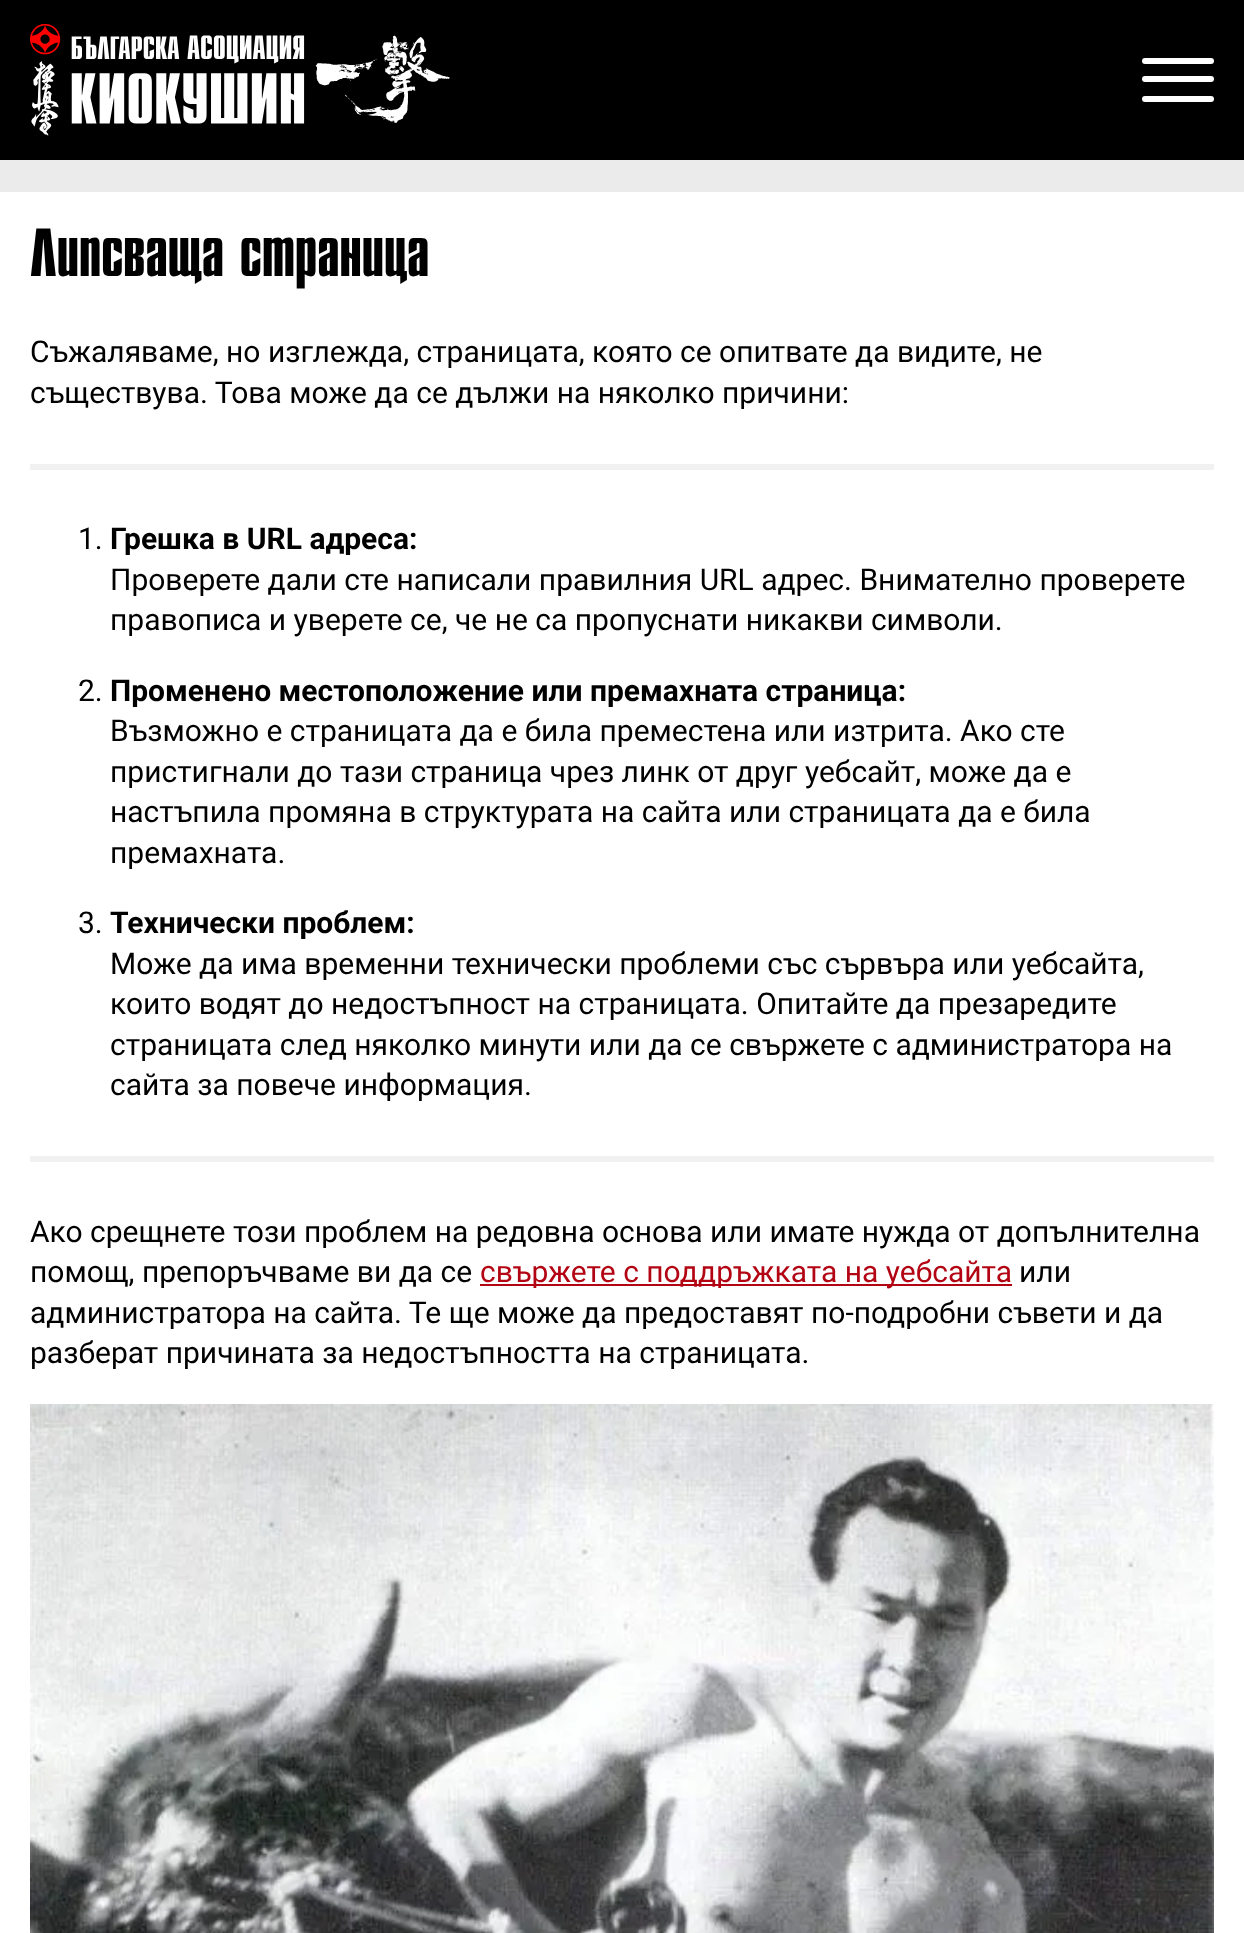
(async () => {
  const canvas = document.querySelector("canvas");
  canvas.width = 1244;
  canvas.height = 1933;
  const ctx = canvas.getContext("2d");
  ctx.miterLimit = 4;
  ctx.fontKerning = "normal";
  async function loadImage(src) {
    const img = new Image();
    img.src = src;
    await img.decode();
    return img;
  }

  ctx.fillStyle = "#ffffff";
  ctx.fillRect(0, 0, 1244, 1933);
  ctx.fillStyle = "#000000";
  ctx.fillRect(0, 0, 1244, 160);
  ctx.drawImage(await loadImage("img/1.png"), 30, 24, 420, 112);
  ctx.fillStyle = "#ffffff";
  ctx.beginPath();
  ctx.roundRect(1142, 58, 72, 6, 3);
  ctx.fill();
  ctx.beginPath();
  ctx.roundRect(1142, 76, 72, 6, 3);
  ctx.fill();
  ctx.beginPath();
  ctx.roundRect(1142, 96, 72, 6, 3);
  ctx.fill();
  for (const [x, y, w, h, color] of [
    [0, 160, 1244, 32, "#ebebeb"],
    [30, 464, 1184, 6, "#f1f1f1"],
    [30, 1156, 1184, 6, "#f1f1f1"],
    [480, 1284, 532, 2, "#b30413"],
  ]) {
    ctx.fillStyle = color;
    ctx.fillRect(x, y, w, h);
  }
  ctx.drawImage(await loadImage("img/2.png"), 30, 1404, 1184, 529);
  ctx.font = "68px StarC";
  ctx.fillStyle = "#000000";
  ctx.fillText("Липсваща страница", 30, 276);
  ctx.font = "30px Roboto";
  for (const [text, x, y] of [
    ["Съжаляваме, но изглежда, страницата, която се опитвате да видите, не", 30, 362],
    ["съществува. Това може да се дължи на няколко причини:", 30, 403],
    ["1.", 78, 549],
  ]) {
    ctx.fillText(text, x, y);
  }
  ctx.font = "bold 30px Roboto";
  ctx.fillText("Грешка в URL адреса:", 110, 549);
  ctx.font = "30px Roboto";
  for (const [text, x, y] of [
    ["Проверете дали сте написали правилния URL адрес. Внимателно проверете", 110, 590],
    ["правописа и уверете се, че не са пропуснати никакви символи.", 110, 630],
    ["2.", 78, 701],
  ]) {
    ctx.fillText(text, x, y);
  }
  ctx.font = "bold 30px Roboto";
  ctx.fillText("Променено местоположение или премахната страница:", 110, 701);
  ctx.font = "30px Roboto";
  for (const [text, x, y] of [
    ["Възможно е страницата да е била преместена или изтрита. Ако сте", 110, 741],
    ["пристигнали до тази страница чрез линк от друг уебсайт, може да е", 110, 782],
    ["настъпила промяна в структурата на сайта или страницата да е била", 110, 822],
    ["премахната.", 110, 863],
    ["3.", 78, 933],
  ]) {
    ctx.fillText(text, x, y);
  }
  ctx.font = "bold 30px Roboto";
  ctx.fillText("Технически проблем:", 110, 933);
  ctx.font = "30px Roboto";
  for (const [text, x, y] of [
    ["Може да има временни технически проблеми със сървъра или уебсайта,", 110, 974],
    ["които водят до недостъпност на страницата. Опитайте да презаредите", 110, 1014],
    ["страницата след няколко минути или да се свържете с администратора на", 110, 1055],
    ["сайта за повече информация.", 110, 1095],
    ["Ако срещнете този проблем на редовна основа или имате нужда от допълнителна", 30, 1242],
    ["помощ, препоръчваме ви да се", 30, 1282],
  ]) {
    ctx.fillText(text, x, y);
  }
  ctx.fillStyle = "#b30413";
  ctx.fillText("свържете с поддръжката на уебсайта", 480, 1282);
  ctx.fillStyle = "#000000";
  for (const [text, x, y] of [
    ["или", 1019, 1282],
    ["администратора на сайта. Те ще може да предоставят по-подробни съвети и да", 30, 1323],
    ["разберат причината за недостъпността на страницата.", 30, 1363],
  ]) {
    ctx.fillText(text, x, y);
  }
})();
